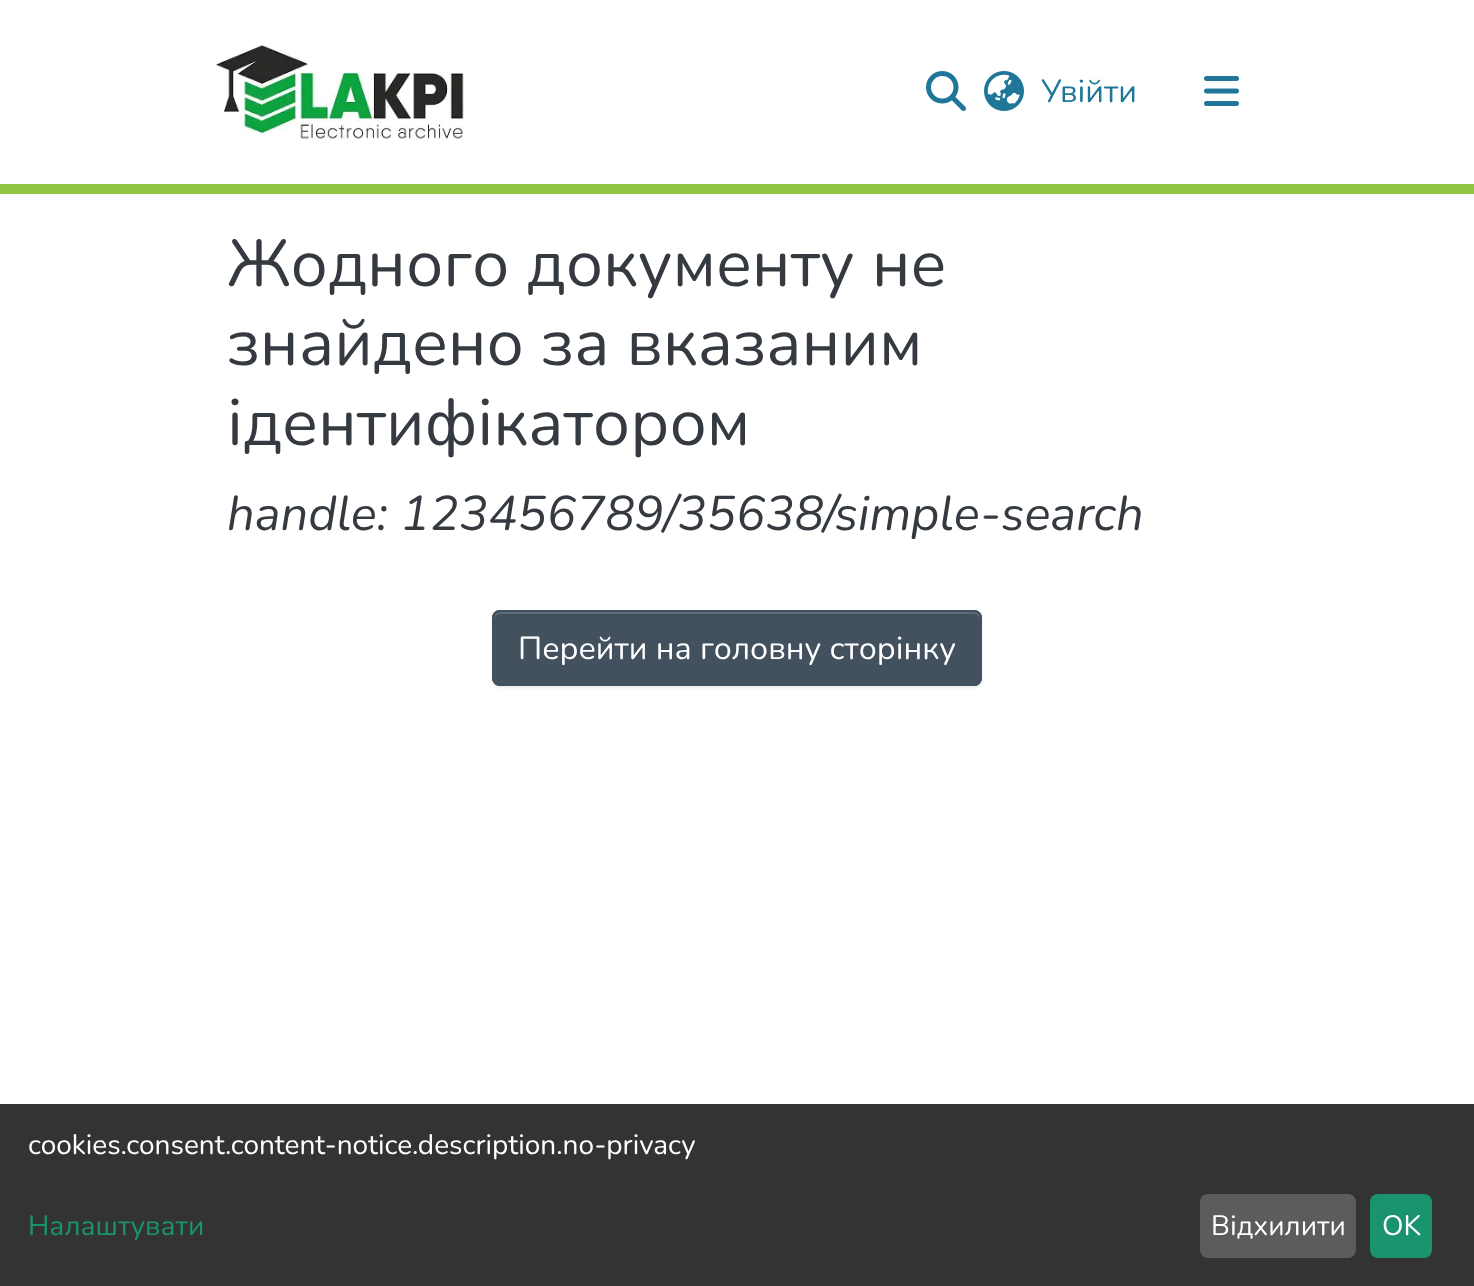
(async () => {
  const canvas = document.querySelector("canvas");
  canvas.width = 1474;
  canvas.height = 1286;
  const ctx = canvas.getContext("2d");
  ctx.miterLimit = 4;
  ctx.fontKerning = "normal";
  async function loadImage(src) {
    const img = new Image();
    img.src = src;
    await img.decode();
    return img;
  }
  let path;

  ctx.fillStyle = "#ffffff";
  ctx.fillRect(0, 0, 1474, 1286);
  ctx.fillStyle = "#92c642";
  ctx.fillRect(0, 184, 1474, 10);
  ctx.drawImage(await loadImage("img/1.png"), 215, 45, 249, 95);
  ctx.drawImage(await loadImage("img/2.png"), 926, 71, 40, 40);
  ctx.drawImage(await loadImage("img/3.png"), 984, 71, 40, 40);
  ctx.drawImage(await loadImage("img/4.png"), 1204, 76, 35, 30);
  ctx.fillStyle = "rgba(0, 0, 0, 0.07)";
  ctx.filter = "blur(1px)";
  ctx.beginPath();
  ctx.roundRect(492, 612, 490, 76, 8);
  ctx.fill();
  ctx.filter = "none";
  ctx.fillStyle = "#43515f";
  ctx.beginPath();
  ctx.roundRect(492, 610, 490, 76, 8);
  ctx.fill();
  ctx.fillStyle = "#5f6b77";
  path = new Path2D("M500 614H974C977 614 980 617 980 620C980 616 979 612 974 612H500C495 612 494 616 494 620C494 617 497 614 500 614Z");
  ctx.fill(path);
  ctx.beginPath();
  ctx.roundRect(493, 611, 488, 74, 7);
  ctx.strokeStyle = "#43515f";
  ctx.lineWidth = 2;
  ctx.stroke();
  ctx.fillStyle = "#333333";
  ctx.fillRect(0, 1104, 1474, 182);
  ctx.fillStyle = "#5c5c5c";
  ctx.beginPath();
  ctx.roundRect(1200, 1194, 156, 64, 8);
  ctx.fill();
  ctx.fillStyle = "#1a936f";
  ctx.beginPath();
  ctx.roundRect(1370, 1194, 62, 64, 8);
  ctx.fill();
  ctx.font = "32px Nunito";
  ctx.fillStyle = "#207698";
  ctx.fillText("Увійти", 1041, 102);
  ctx.font = "66.1px Nunito";
  ctx.fillStyle = "#343a40";
  for (const [text, x, y] of [
    ["Жодного документу не", 227, 286],
    ["знайдено за вказаним", 227, 365],
    ["ідентифікатором", 227, 445],
  ]) {
    ctx.fillText(text, x, y);
  }
  ctx.font = "italic 48.75px Nunito";
  ctx.fillText("handle: 123456789/35638/simple-search", 227, 530);
  ctx.font = "32px Nunito";
  ctx.fillStyle = "#ffffff";
  ctx.fillText("Перейти на головну сторінку", 518, 659);
  ctx.font = "28px Nunito";
  ctx.fillText("cookies.consent.content-notice.description.no-privacy", 28, 1154);
  ctx.fillStyle = "#1a936f";
  ctx.fillText("Налаштувати", 28, 1235);
  ctx.fillStyle = "#ffffff";
  ctx.fillText("Відхилити", 1211, 1235);
  ctx.fillText("OK", 1382, 1235);
})();
